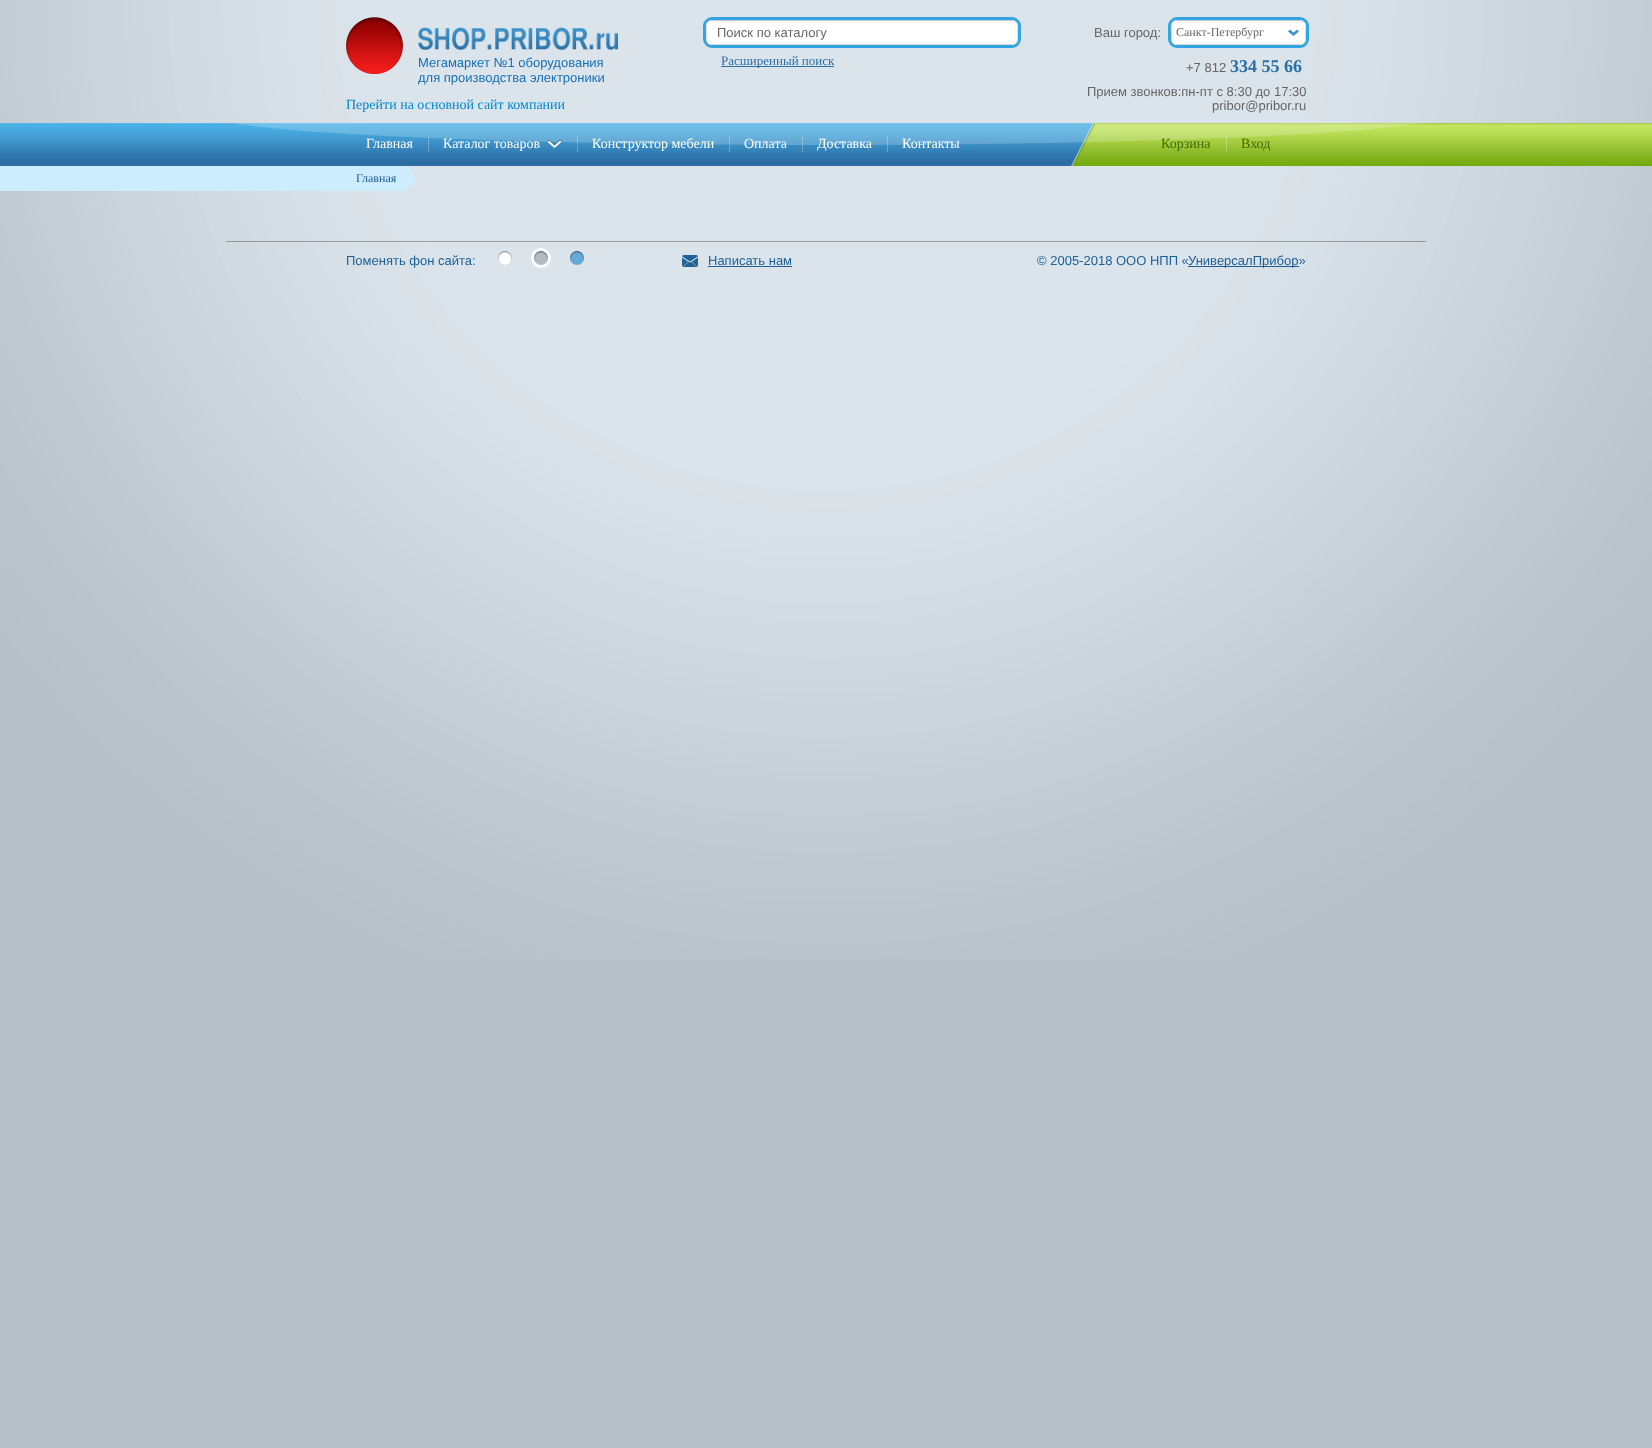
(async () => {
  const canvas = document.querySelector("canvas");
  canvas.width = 1652;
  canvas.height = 1448;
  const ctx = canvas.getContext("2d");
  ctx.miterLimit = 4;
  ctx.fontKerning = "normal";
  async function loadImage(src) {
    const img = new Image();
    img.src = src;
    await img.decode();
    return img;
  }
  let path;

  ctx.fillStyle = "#b6c0c8";
  ctx.fillRect(0, 0, 1652, 1448);
  ctx.drawImage(await loadImage("img/1.png"), 0, 0, 1652, 960);
  ctx.beginPath();
  ctx.roundRect(704.5, 18.5, 315, 28, 7.5);
  ctx.strokeStyle = "#31a5e2";
  ctx.lineWidth = 3;
  ctx.stroke();
  ctx.fillStyle = "#ffffff";
  ctx.beginPath();
  ctx.roundRect(706, 20, 312, 25, 6);
  ctx.fill();
  path = new Path2D("M708 22C709 21 710.5 20.5 712 20.5H1012C1013.5 20.5 1015 21 1016 22");
  ctx.strokeStyle = "#cacdcf";
  ctx.lineWidth = 1;
  ctx.stroke(path);
  path = new Path2D("M1016 22C1018.5 24.5 1017.5 29.5 1017.5 32.5C1017.5 36.5 1018.5 42 1014 44L1012 44.5H712C705.5 44.5 706.5 37 706.5 32.5C706.5 29.5 705.5 24.5 708 22");
  ctx.strokeStyle = "#d5d7d9";
  ctx.stroke(path);
  ctx.fillStyle = "#2c70a6";
  ctx.fillRect(721, 66, 113, 1);
  ctx.beginPath();
  ctx.roundRect(1169.5, 18.5, 138, 28, 7.5);
  ctx.strokeStyle = "#31a5e2";
  ctx.lineWidth = 3;
  ctx.stroke();
  ctx.fillStyle = "#ffffff";
  ctx.beginPath();
  ctx.roundRect(1171, 20, 135, 25, 6);
  ctx.fill();
  path = new Path2D("M1173 22L1176.5 20.5H1300.5L1304 22");
  ctx.strokeStyle = "#cacdcf";
  ctx.lineWidth = 1;
  ctx.stroke(path);
  path = new Path2D("M1304 22C1306.5 24.5 1305.5 29.5 1305.5 32.5C1305.5 37 1306.5 44.5 1300 44.5H1177C1170.5 44.5 1171.5 37 1171.5 32.5C1171.5 29.5 1170.5 24.5 1173 22");
  ctx.strokeStyle = "#d5d7d9";
  ctx.stroke(path);
  ctx.drawImage(await loadImage("img/2.png"), 1288, 29, 11, 7);
  ctx.drawImage(await loadImage("img/3.png"), 346, 17, 57, 57);
  ctx.drawImage(await loadImage("img/4.png"), 418, 27, 200, 23);
  ctx.drawImage(await loadImage("img/5.png"), 0, 123, 1071, 43);
  ctx.drawImage(await loadImage("img/7.png"), 428, 137, 1, 15);
  ctx.drawImage(await loadImage("img/7.png"), 577, 137, 1, 15);
  ctx.drawImage(await loadImage("img/7.png"), 729, 137, 1, 15);
  ctx.drawImage(await loadImage("img/7.png"), 802, 137, 1, 15);
  ctx.drawImage(await loadImage("img/7.png"), 887, 137, 1, 15);
  ctx.drawImage(await loadImage("img/9.png"), 1071, 123, 581, 43);
  ctx.drawImage(await loadImage("img/10.png"), 1071, 123, 24, 43);
  ctx.drawImage(await loadImage("img/11.png"), 1226, 137, 1, 15);
  ctx.drawImage(await loadImage("img/6.png"), 234, 123, 1185, 22);
  ctx.drawImage(await loadImage("img/8.png"), 547, 139, 15, 9);
  ctx.fillStyle = "#cdedff";
  ctx.fillRect(0, 166, 406, 25);
  ctx.drawImage(await loadImage("img/12.png"), 406, 166, 10, 25);
  ctx.fillStyle = "rgba(50, 50, 50, 0.4)";
  ctx.fillRect(226, 241, 1200, 1);
  ctx.drawImage(await loadImage("img/13.png"), 498, 251, 14, 14);
  ctx.drawImage(await loadImage("img/14.png"), 531, 248, 20, 20);
  ctx.drawImage(await loadImage("img/15.png"), 570, 251, 14, 14);
  ctx.drawImage(await loadImage("img/16.png"), 682, 255, 16, 12);
  ctx.fillStyle = "#1e6095";
  ctx.fillRect(708, 266, 84, 1);
  ctx.fillRect(1188, 266, 111, 1);
  ctx.font = "13px Liberation Sans";
  ctx.fillStyle = "#666666";
  ctx.fillText("Поиск по каталогу", 717, 37);
  ctx.font = "13px Liberation Serif";
  ctx.fillStyle = "#2c70a6";
  ctx.fillText("Расширенный поиск", 721, 65);
  ctx.font = "13px Liberation Sans";
  ctx.fillStyle = "#666666";
  ctx.fillText("Ваш город:", 1094, 37);
  ctx.font = "12px Liberation Serif";
  ctx.fillText("Санкт-Петербург", 1176, 36);
  ctx.font = "13px Liberation Sans";
  ctx.fillText("+7 812", 1186, 72);
  ctx.font = "bold 18px Liberation Serif";
  ctx.fillStyle = "#2c70a6";
  ctx.fillText("334 55 66", 1230, 72);
  ctx.font = "13px Liberation Sans";
  ctx.fillStyle = "#666666";
  ctx.fillText("Прием звонков:пн-пт с 8:30 до 17:30", 1087, 96);
  ctx.fillText("pribor@pribor.ru", 1212, 110);
  ctx.fillStyle = "#166fb2";
  ctx.fillText("Мегамаркет №1 оборудования", 418, 67);
  ctx.fillText("для производства электроники", 418, 82);
  ctx.font = "14px Liberation Serif";
  ctx.fillStyle = "#0088cc";
  ctx.fillText("Перейти на основной сайт компании", 346, 109);
  ctx.fillStyle = "#ffffff";
  for (const [text, x, y] of [
    ["Главная", 366, 148],
    ["Каталог товаров", 443, 148],
    ["Конструктор мебели", 592, 148],
    ["Оплата", 744, 148],
    ["Доставка", 817, 148],
    ["Контакты", 902, 148],
  ]) {
    ctx.fillText(text, x, y);
  }
  ctx.fillStyle = "#426c00";
  ctx.fillText("Корзина", 1161, 148);
  ctx.fillText("Вход", 1241, 148);
  ctx.font = "12px Liberation Serif";
  ctx.fillStyle = "#1e6095";
  ctx.fillText("Главная", 356, 182);
  ctx.font = "13px Liberation Sans";
  for (const [text, x, y] of [
    ["Поменять фон сайта:", 346, 265],
    ["Написать нам", 708, 265],
    ["© 2005-2018 OOO НПП «", 1037, 265],
    ["УниверсалПрибор»", 1188, 265],
  ]) {
    ctx.fillText(text, x, y);
  }
})();
